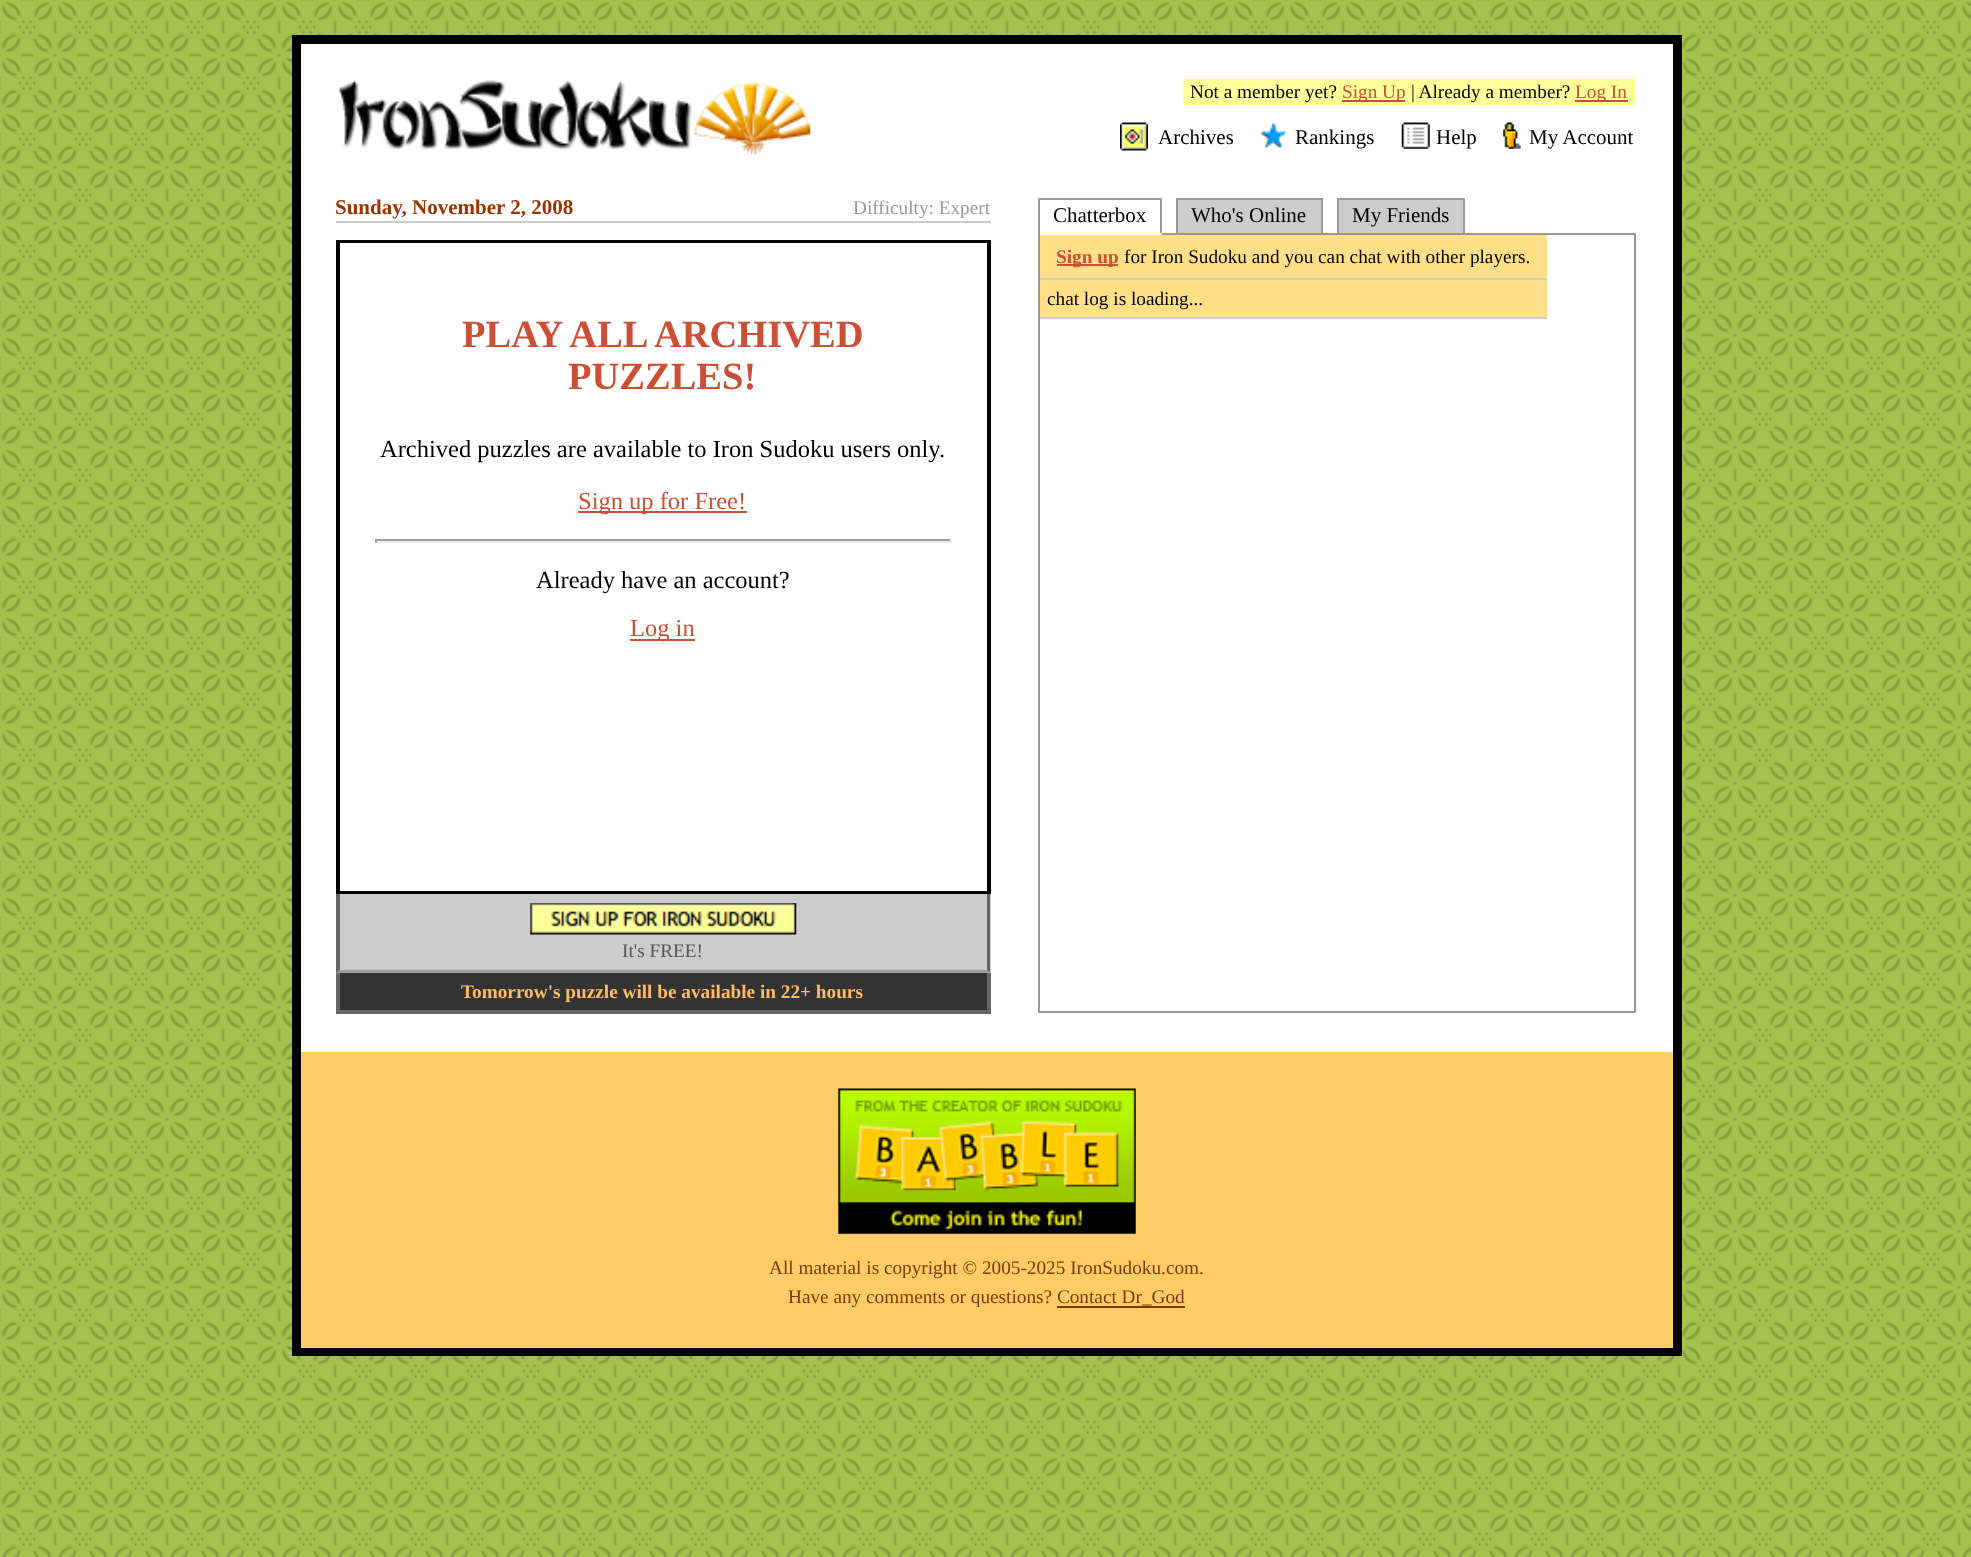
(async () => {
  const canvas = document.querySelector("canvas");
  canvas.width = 1971;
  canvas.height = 1557;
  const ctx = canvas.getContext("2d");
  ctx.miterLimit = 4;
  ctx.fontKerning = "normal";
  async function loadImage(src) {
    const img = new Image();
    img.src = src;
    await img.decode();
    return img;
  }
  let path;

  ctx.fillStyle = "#ffffff";
  ctx.fillRect(0, 0, 1971, 1557);
  ctx.drawImage(await loadImage("img/1.png"), 0, 0, 1971, 1557);
  ctx.fillRect(301, 44, 1372, 35);
  ctx.strokeStyle = "#000000";
  ctx.lineWidth = 9;
  ctx.strokeRect(296.5, 39.5, 1381, 1312);
  ctx.fillRect(301, 79, 1372, 973);
  ctx.drawImage(await loadImage("img/2.png"), 338, 80, 473, 74);
  for (const [x, y, w, h, color] of [
    [1183, 79, 452, 26, "#ffff99"],
    [1342, 100, 63, 2, "#cc4e35"],
    [1575, 100, 53, 2, "#cc4e35"],
  ]) {
    ctx.fillStyle = color;
    ctx.fillRect(x, y, w, h);
  }
  ctx.drawImage(await loadImage("img/3.png"), 1120, 122, 28, 29);
  ctx.drawImage(await loadImage("img/4.png"), 1260, 122, 27, 27);
  ctx.drawImage(await loadImage("img/5.png"), 1401, 122, 29, 27);
  ctx.drawImage(await loadImage("img/6.png"), 1503, 122, 18, 27);
  for (const [x, y, w, h, color] of [
    [336, 221, 655, 2, "#cccccc"],
    [336, 240, 655, 654, "#000000"],
    [340, 243, 647, 648, "#ffffff"],
    [578, 511, 169, 2, "#cc4e35"],
    [375, 539, 577, 2, "#9f9f9f"],
    [950, 539, 2, 4, "#eeeeee"],
    [375, 541, 577, 2, "#eeeeee"],
    [375, 539, 2, 4, "#9f9f9f"],
    [630, 639, 65, 2, "#cc4e35"],
    [336, 894, 655, 79, "#cccccc"],
  ]) {
    ctx.fillStyle = color;
    ctx.fillRect(x, y, w, h);
  }
  ctx.fillStyle = "#666666";
  path = new Path2D("M990 894V973L987 970V894Z");
  ctx.fill(path);
  ctx.fillStyle = "#999999";
  path = new Path2D("M990 973H336L340 970H987Z");
  ctx.fill(path);
  ctx.fillStyle = "#666666";
  path = new Path2D("M336 973V894H340V970Z");
  ctx.fill(path);
  ctx.drawImage(await loadImage("img/7.png"), 530, 903, 267, 32);
  for (const [x, y, w, h, color] of [
    [340, 973, 647, 37, "#333333"],
    [987, 973, 4, 40, "#666666"],
    [336, 1010, 655, 4, "#666666"],
    [336, 973, 4, 40, "#666666"],
    [1038, 198, 124, 2, "#999999"],
  ]) {
    ctx.fillStyle = color;
    ctx.fillRect(x, y, w, h);
  }
  ctx.strokeStyle = "#999999";
  ctx.lineWidth = 2;
  ctx.strokeRect(1039, 234, 596, 778);
  for (const [x, y, w, h, color] of [
    [1160, 198, 2, 37, "#999999"],
    [1038, 233, 124, 2, "#ffffff"],
    [1038, 198, 2, 37, "#999999"],
  ]) {
    ctx.fillStyle = color;
    ctx.fillRect(x, y, w, h);
  }
  ctx.fillStyle = "#cccccc";
  ctx.beginPath();
  ctx.rect(1177, 199, 145, 35);
  ctx.fill();
  ctx.stroke();
  ctx.beginPath();
  ctx.rect(1338, 199, 126, 35);
  ctx.fill();
  ctx.stroke();
  for (const [x, y, w, h, color] of [
    [1040, 235, 507, 43, "#ffdf88"],
    [1040, 278, 507, 2, "#cccccc"],
    [1057, 264, 61, 2, "#cc4e35"],
    [1040, 280, 507, 37, "#ffdf88"],
    [1040, 317, 507, 2, "#cccccc"],
    [301, 1052, 1372, 296, "#ffcc66"],
  ]) {
    ctx.fillStyle = color;
    ctx.fillRect(x, y, w, h);
  }
  ctx.drawImage(await loadImage("img/8.png"), 838, 1088, 298, 146);
  ctx.fillStyle = "#793a00";
  ctx.fillRect(1057, 1306, 128, 2);
  ctx.font = "19.25px Liberation Serif";
  ctx.fillStyle = "#000000";
  ctx.fillText("Not a member yet?", 1190, 98);
  ctx.fillStyle = "#cc4e35";
  ctx.fillText("Sign Up", 1342, 98);
  ctx.fillStyle = "#000000";
  ctx.fillText("| Already a member?", 1411, 98);
  ctx.fillStyle = "#cc4e35";
  ctx.fillText("Log In", 1575, 98);
  ctx.font = "21px Liberation Serif";
  ctx.fillStyle = "#000000";
  for (const [text, x, y] of [
    ["Archives", 1158, 144],
    ["Rankings", 1295, 144],
    ["Help", 1436, 144],
    ["My Account", 1529, 144],
  ]) {
    ctx.fillText(text, x, y);
  }
  ctx.font = "bold 21px Liberation Serif";
  ctx.fillStyle = "#993300";
  ctx.fillText("Sunday, November 2, 2008", 335, 214);
  ctx.font = "19.25px Liberation Serif";
  ctx.fillStyle = "#999999";
  ctx.fillText("Difficulty: Expert", 853, 214);
  ctx.font = "bold 38.5px Liberation Serif";
  ctx.fillStyle = "#cc4e35";
  ctx.fillText("PLAY ALL ARCHIVED", 462, 347);
  ctx.fillText("PUZZLES!", 568, 389);
  ctx.font = "24.5px Liberation Serif";
  ctx.fillStyle = "#000000";
  ctx.fillText("Archived puzzles are available to Iron Sudoku users only.", 380, 457);
  ctx.fillStyle = "#cc4e35";
  ctx.fillText("Sign up for Free!", 578, 509);
  ctx.fillStyle = "#000000";
  ctx.fillText("Already have an account?", 536, 588);
  ctx.fillStyle = "#cc4e35";
  ctx.fillText("Log in", 630, 636);
  ctx.font = "19.25px Liberation Serif";
  ctx.fillStyle = "#555555";
  ctx.fillText("It's FREE!", 622, 957);
  ctx.font = "bold 19.25px Liberation Serif";
  ctx.fillStyle = "#ffbb66";
  ctx.fillText("Tomorrow's puzzle will be available in 22+ hours", 461, 998);
  ctx.font = "21px Liberation Serif";
  ctx.fillStyle = "#000000";
  for (const [text, x, y] of [
    ["Chatterbox", 1053, 222],
    ["Who's Online", 1191, 222],
    ["My Friends", 1352, 222],
  ]) {
    ctx.fillText(text, x, y);
  }
  ctx.font = "bold 19.25px Liberation Serif";
  ctx.fillStyle = "#cc4e35";
  ctx.fillText("Sign up", 1056, 263);
  ctx.font = "19.25px Liberation Serif";
  ctx.fillStyle = "#000000";
  ctx.fillText("for Iron Sudoku and you can chat with other players.", 1124, 263);
  ctx.fillText("chat log is loading...", 1047, 305);
  ctx.fillStyle = "#793a00";
  ctx.fillText("All material is copyright © 2005-2025 IronSudoku.com.", 769, 1274);
  ctx.fillText("Have any comments or questions? Contact Dr_God", 788, 1303);
})();
